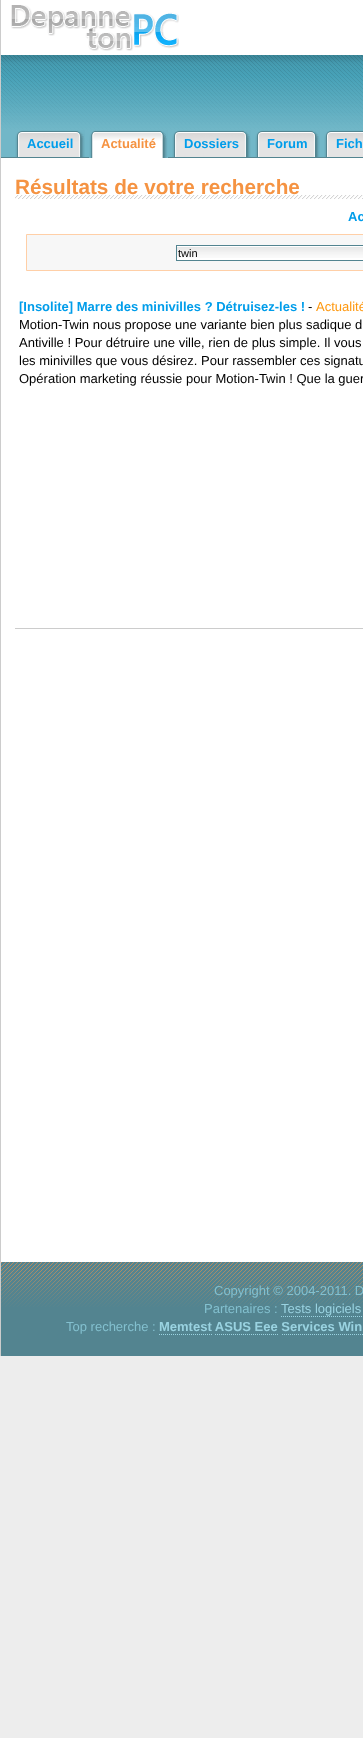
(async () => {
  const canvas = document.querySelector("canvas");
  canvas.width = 363;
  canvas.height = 1738;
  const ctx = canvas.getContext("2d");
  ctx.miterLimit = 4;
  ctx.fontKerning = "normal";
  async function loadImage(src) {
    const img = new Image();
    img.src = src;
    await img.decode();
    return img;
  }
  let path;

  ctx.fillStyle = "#ededed";
  ctx.fillRect(0, 0, 363, 1738);
  ctx.fillStyle = "#ffffff";
  ctx.fillRect(1, 0, 362, 1262);
  ctx.fillStyle = "#cccccc";
  ctx.fillRect(0, 0, 1, 1356);
  ctx.drawImage(await loadImage("img/1.png"), 11, 5, 168, 46);
  ctx.drawImage(await loadImage("img/2.png"), 1, 55, 362, 75);
  ctx.fillStyle = "#72b7c8";
  ctx.fillRect(1, 130, 323, 27);
  ctx.fillStyle = "#538490";
  ctx.fillRect(1, 157, 362, 1);
  ctx.drawImage(await loadImage("img/3.png"), 22, 130, 63, 27);
  ctx.drawImage(await loadImage("img/4.png"), 15, 130, 7, 27);
  ctx.drawImage(await loadImage("img/5.png"), 95, 130, 73, 28);
  ctx.drawImage(await loadImage("img/6.png"), 89, 130, 6, 28);
  ctx.drawImage(await loadImage("img/7.png"), 179, 130, 72, 27);
  ctx.drawImage(await loadImage("img/4.png"), 172, 130, 7, 27);
  ctx.drawImage(await loadImage("img/8.png"), 262, 130, 58, 27);
  ctx.drawImage(await loadImage("img/4.png"), 255, 130, 7, 27);
  ctx.drawImage(await loadImage("img/9.png"), 331, 130, 32, 27);
  ctx.drawImage(await loadImage("img/4.png"), 324, 130, 7, 27);
  ctx.drawImage(await loadImage("img/10.png"), 15, 195, 348, 4);
  ctx.fillStyle = "#cccccc";
  ctx.fillRect(15, 628, 348, 1);
  ctx.fillStyle = "#f7f7f7";
  ctx.beginPath();
  ctx.rect(26.5, 234.5, 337, 36);
  ctx.fill();
  ctx.strokeStyle = "#ffcfa7";
  ctx.stroke();
  ctx.fillStyle = "#ffffff";
  ctx.fillRect(177, 246, 186, 14);
  ctx.drawImage(await loadImage("img/11.png"), 177, 247, 186, 11);
  ctx.strokeStyle = "#538490";
  ctx.strokeRect(176.5, 245.5, 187, 15);
  ctx.fillStyle = "#538490";
  ctx.fillRect(1, 1307, 362, 49);
  ctx.drawImage(await loadImage("img/12.png"), 1, 1262, 362, 45);
  path = new Path2D("M281 1316.5H362");
  ctx.strokeStyle = "#9ad3e1";
  ctx.setLineDash([1, 1]);
  ctx.stroke(path);
  path = new Path2D("M159 1334.5H212");
  ctx.stroke(path);
  path = new Path2D("M215 1334.5H278");
  ctx.stroke(path);
  path = new Path2D("M282 1334.5H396");
  ctx.stroke(path);
  ctx.font = "bold 13px Liberation Sans";
  ctx.fillStyle = "#009dea";
  ctx.fillText("Accueil", 27, 148);
  ctx.fillStyle = "#f59342";
  ctx.fillText("Actualité", 101, 148);
  ctx.fillStyle = "#009dea";
  for (const [text, x, y] of [
    ["Dossiers", 184, 148],
    ["Forum", 267, 148],
    ["Fich", 336, 148],
  ]) {
    ctx.fillText(text, x, y);
  }
  ctx.font = "bold 20.75px Liberation Sans";
  ctx.fillStyle = "#f59342";
  ctx.fillText("Résultats de votre recherche", 15, 194);
  ctx.font = "bold 13px Liberation Sans";
  ctx.fillStyle = "#009dea";
  ctx.fillText("Ac", 348, 221);
  ctx.font = "11px Liberation Sans";
  ctx.fillStyle = "#000000";
  ctx.fillText("twin", 178, 257);
  ctx.font = "bold 13px Liberation Sans";
  ctx.fillStyle = "#009dea";
  ctx.fillText("[Insolite] Marre des minivilles ? Détruisez-les !", 19, 311);
  ctx.font = "13px Liberation Sans";
  ctx.fillStyle = "#000000";
  ctx.fillText("-", 308, 311);
  ctx.fillStyle = "#fe980f";
  ctx.fillText("Actualité", 316, 311);
  ctx.fillStyle = "#000000";
  for (const [text, x, y] of [
    ["Motion-Twin nous propose une variante bien plus sadique d", 19, 329],
    ["Antiville ! Pour détruire une ville, rien de plus simple. Il vous", 19, 347],
    ["les minivilles que vous désirez. Pour rassembler ces signatu", 19, 365],
    ["Opération marketing réussie pour Motion-Twin ! Que la guer", 19, 383],
  ]) {
    ctx.fillText(text, x, y);
  }
  ctx.fillStyle = "#83c0cf";
  ctx.fillText("Copyright © 2004-2011. D", 214, 1295);
  ctx.fillText("Partenaires :", 204, 1313);
  ctx.fillStyle = "#9ad3e1";
  ctx.fillText("Tests logiciels", 281, 1313);
  ctx.fillStyle = "#83c0cf";
  ctx.fillText("Top recherche :", 66, 1331);
  ctx.font = "bold 13px Liberation Sans";
  ctx.fillStyle = "#9ad3e1";
  ctx.fillText("Memtest ASUS Eee Services Win", 159, 1331);
})();
